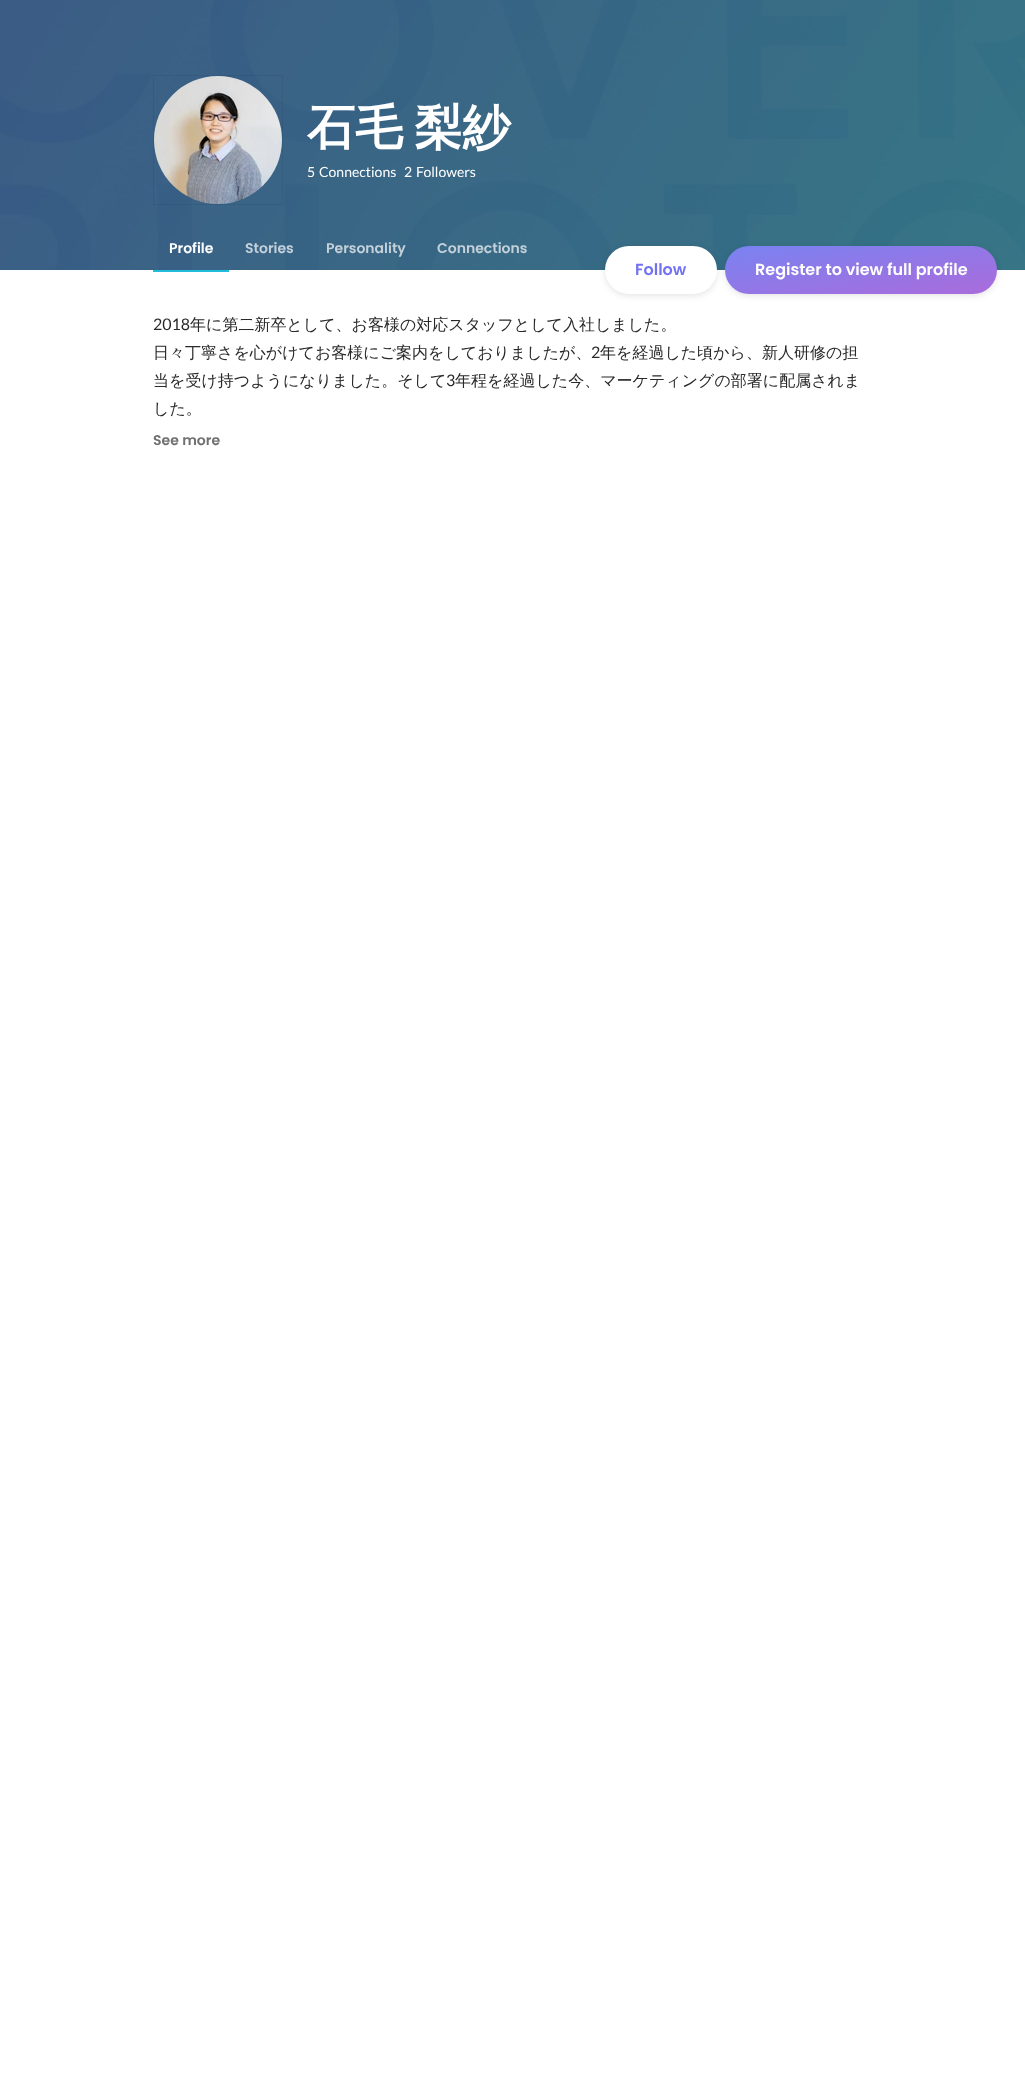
(async () => {
  const canvas = document.querySelector("canvas");
  canvas.width = 1025;
  canvas.height = 2097;
  const ctx = canvas.getContext("2d");
  ctx.miterLimit = 4;
  ctx.fontKerning = "normal";
  async function loadImage(src) {
    const img = new Image();
    img.src = src;
    await img.decode();
    return img;
  }
  let gradient;

  ctx.fillStyle = "#ffffff";
  ctx.fillRect(0, 0, 1025, 2097);
  ctx.drawImage(await loadImage("img/1.png"), 0, 0, 1025, 270);
  ctx.strokeStyle = "rgba(0, 0, 0, 0.06)";
  ctx.strokeRect(153.5, 75.5, 129, 129);
  ctx.drawImage(await loadImage("img/2.png"), 154, 76, 128, 128);
  ctx.fillStyle = "#21bddb";
  ctx.fillRect(153, 270, 76, 2);
  ctx.fillStyle = "rgba(0, 0, 0, 0.1)";
  ctx.filter = "blur(3px)";
  ctx.beginPath();
  ctx.roundRect(605, 248, 112, 48, 24);
  ctx.fill();
  ctx.filter = "none";
  ctx.fillStyle = "#ffffff";
  ctx.beginPath();
  ctx.roundRect(605, 246, 112, 48, 24);
  ctx.fill();
  ctx.fillStyle = "rgba(0, 0, 0, 0.1)";
  ctx.filter = "blur(3px)";
  ctx.beginPath();
  ctx.roundRect(725, 248, 272, 48, 24);
  ctx.fill();
  ctx.filter = "none";
  gradient = ctx.createLinearGradient(853, 223, 869, 317);
  gradient.addColorStop(0, "#7983f2");
  gradient.addColorStop(1, "#ab6bdb");
  ctx.fillStyle = gradient;
  ctx.beginPath();
  ctx.roundRect(725, 246, 272, 48, 24);
  ctx.fill();
  ctx.wordSpacing = "-3px";
  ctx.font = "bold 48px WenQuanYi Zen Hei";
  ctx.fillStyle = "#ffffff";
  ctx.fillText("石毛 梨紗", 307, 144);
  ctx.wordSpacing = "0px";
  ctx.font = "14px Lato";
  for (const [text, x, y] of [
    ["5", 307, 177],
    ["Connections", 319, 177],
    ["2", 404, 177],
    ["Followers", 416, 177],
  ]) {
    ctx.fillText(text, x, y);
  }
  ctx.font = "600 14px Poppins";
  ctx.fillText("Profile", 169, 253);
  ctx.fillStyle = "#c4d1da";
  for (const [text, x, y] of [
    ["Stories", 245, 253],
    ["Personality", 326, 253],
    ["Connections", 437, 253],
  ]) {
    ctx.fillText(text, x, y);
  }
  ctx.font = "600 16px Poppins";
  ctx.fillStyle = "#7372f2";
  ctx.fillText("Follow", 635, 275);
  ctx.fillStyle = "#ffffff";
  ctx.fillText("Register to view full profile", 755, 275);
  ctx.font = "16px Lato";
  ctx.fillStyle = "#292929";
  ctx.fillText("2018", 153, 330);
  ctx.font = "500 16px WenQuanYi Zen Hei";
  ctx.fillText("年に第二新卒として、お客様の対応スタッフとして入社しました。", 190, 330);
  ctx.fillText("日々丁寧さを心がけてお客様にご案内をしておりましたが、", 153, 358);
  ctx.font = "16px Lato";
  ctx.fillText("2", 591, 358);
  ctx.font = "500 16px WenQuanYi Zen Hei";
  ctx.fillText("年を経過した頃から、新人研修の担", 600, 358);
  ctx.fillText("当を受け持つようになりました。そして", 153, 386);
  ctx.font = "16px Lato";
  ctx.fillText("3", 446, 386);
  ctx.font = "500 16px WenQuanYi Zen Hei";
  ctx.fillText("年程を経過した今、マーケティングの部署に配属されま", 455, 386);
  ctx.fillText("した。", 153, 414);
  ctx.font = "600 14px Poppins";
  ctx.fillStyle = "#707070";
  ctx.fillText("See more", 153, 445);
})();
